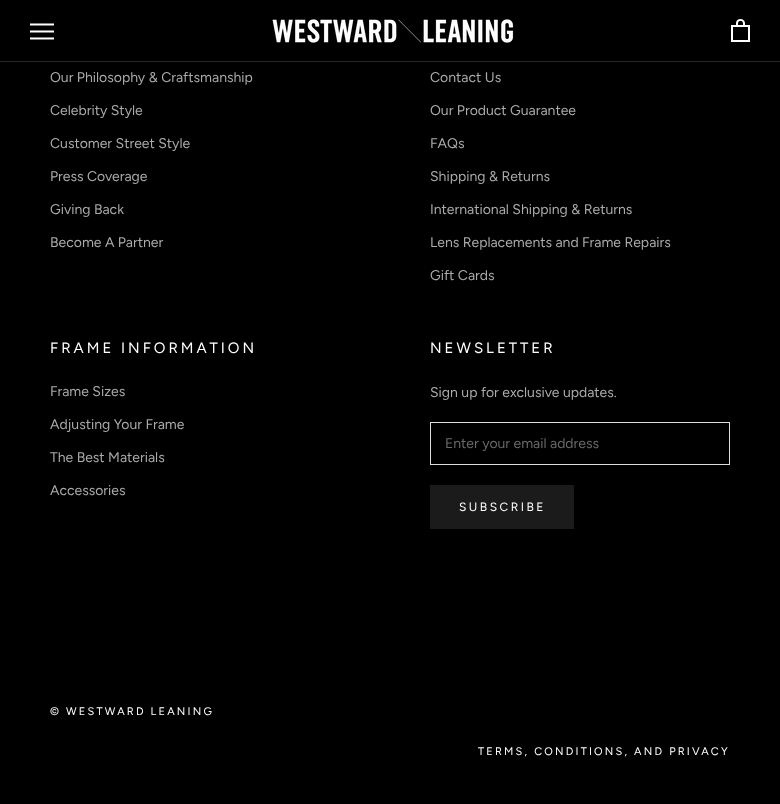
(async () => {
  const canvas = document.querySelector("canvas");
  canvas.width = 780;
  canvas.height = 804;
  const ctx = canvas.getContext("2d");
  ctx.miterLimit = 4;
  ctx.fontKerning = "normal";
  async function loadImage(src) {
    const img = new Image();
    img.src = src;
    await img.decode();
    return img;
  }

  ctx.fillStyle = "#000000";
  ctx.fillRect(0, 0, 780, 804);
  ctx.fillStyle = "#262626";
  ctx.fillRect(0, 61, 780, 1);
  ctx.drawImage(await loadImage("img/1.png"), 30, 23, 24, 17);
  ctx.drawImage(await loadImage("img/2.png"), 272, 19, 242, 24);
  ctx.drawImage(await loadImage("img/3.png"), 731, 19, 19, 23);
  ctx.strokeStyle = "#dddddd";
  ctx.strokeRect(430.5, 422.5, 299, 42);
  ctx.strokeStyle = "#1c1b1b";
  ctx.strokeRect(430.5, 485.5, 143, 43);
  ctx.fillStyle = "#1c1b1b";
  ctx.fillRect(431, 486, 142, 42);
  ctx.font = "14px Figtree";
  ctx.fillStyle = "#acaaaa";
  for (const [text, x, y] of [
    ["Our Philosophy & Craftsmanship", 50, 82],
    ["Celebrity Style", 50, 115],
    ["Customer Street Style", 50, 148],
    ["Press Coverage", 50, 181],
    ["Giving Back", 50, 214],
    ["Become A Partner", 50, 247],
    ["Contact Us", 430, 82],
    ["Our Product Guarantee", 430, 115],
    ["FAQs", 430, 148],
    ["Shipping & Returns", 430, 181],
    ["International Shipping & Returns", 430, 214],
    ["Lens Replacements and Frame Repairs", 430, 247],
    ["Gift Cards", 430, 280],
  ]) {
    ctx.fillText(text, x, y);
  }
  ctx.letterSpacing = "3px";
  ctx.font = "15px Figtree";
  ctx.fillStyle = "#ffffff";
  ctx.fillText("FRAME INFORMATION", 50, 353);
  ctx.letterSpacing = "0px";
  ctx.font = "14px Figtree";
  ctx.fillStyle = "#acaaaa";
  for (const [text, x, y] of [
    ["Frame Sizes", 50, 396],
    ["Adjusting Your Frame", 50, 429],
    ["The Best Materials", 50, 462],
    ["Accessories", 50, 495],
  ]) {
    ctx.fillText(text, x, y);
  }
  ctx.letterSpacing = "3px";
  ctx.font = "15px Figtree";
  ctx.fillStyle = "#ffffff";
  ctx.fillText("NEWSLETTER", 430, 353);
  ctx.letterSpacing = "0px";
  ctx.font = "14px Figtree";
  ctx.fillStyle = "#acaaaa";
  ctx.fillText("Sign up for exclusive updates.", 430, 397);
  ctx.fillStyle = "#6a6a6a";
  ctx.fillText("Enter your email address", 445, 448);
  ctx.letterSpacing = "2.5px";
  ctx.font = "12px Figtree";
  ctx.fillStyle = "#ffffff";
  ctx.fillText("SUBSCRIBE", 459, 511);
  ctx.letterSpacing = "2.2px";
  ctx.font = "11px Figtree";
  ctx.fillText("© WESTWARD LEANING", 50, 715);
  ctx.fillText("TERMS, CONDITIONS, AND PRIVACY", 478, 755);
})();
